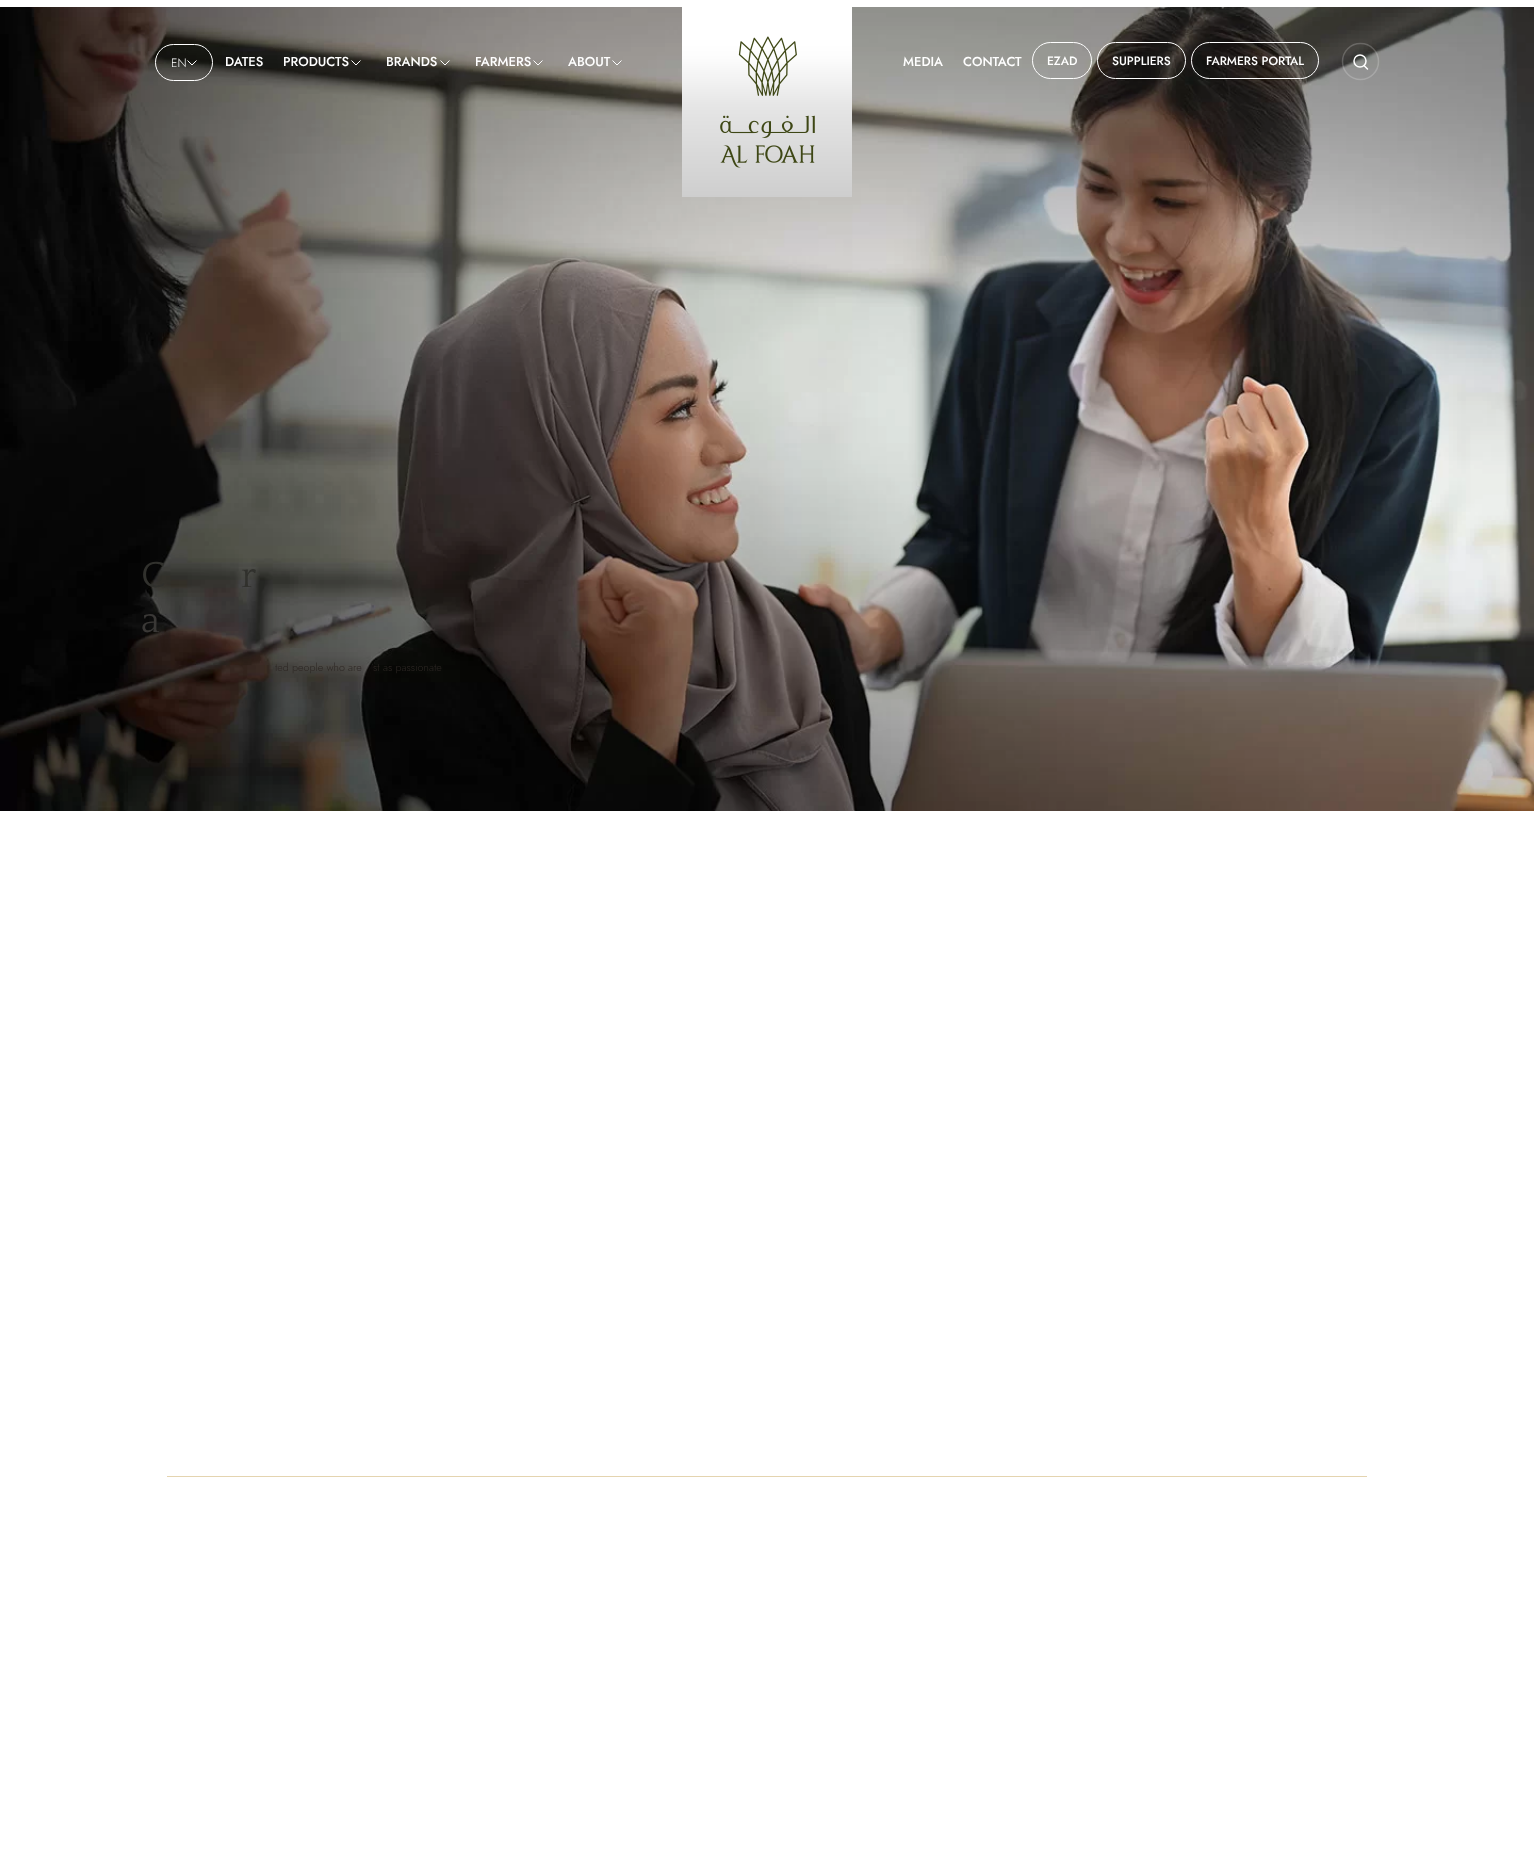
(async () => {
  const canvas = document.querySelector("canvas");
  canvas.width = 1534;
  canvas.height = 1871;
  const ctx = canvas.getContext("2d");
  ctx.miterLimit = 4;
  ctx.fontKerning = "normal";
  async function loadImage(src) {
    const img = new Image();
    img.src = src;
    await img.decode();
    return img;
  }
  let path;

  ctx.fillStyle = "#ffffff";
  ctx.fillRect(0, 0, 1534, 1871);
  ctx.drawImage(await loadImage("img/2.png"), 0, 7, 1534, 804);
  ctx.beginPath();
  ctx.roundRect(155.5, 44.5, 57, 36, 18);
  ctx.strokeStyle = "#ffffff";
  ctx.stroke();
  path = new Path2D("M187.5 60.5L192 65L196.5 60.5");
  ctx.strokeStyle = "#fcfcfc";
  ctx.stroke(path);
  path = new Path2D("M351.5 60.5L356 65L360.5 60.5");
  ctx.stroke(path);
  path = new Path2D("M440.5 60.5L445 65L449.5 60.5");
  ctx.stroke(path);
  path = new Path2D("M533.5 60.5L538 65L542.5 60.5");
  ctx.stroke(path);
  path = new Path2D("M612.5 60.5L617 65L621.5 60.5");
  ctx.stroke(path);
  ctx.drawImage(await loadImage("img/1.png"), 682, 7, 170, 190);
  ctx.beginPath();
  ctx.roundRect(1032.5, 42.5, 59, 36, 18);
  ctx.strokeStyle = "#ffffff";
  ctx.stroke();
  ctx.beginPath();
  ctx.roundRect(1097.5, 42.5, 88, 36, 18);
  ctx.stroke();
  ctx.beginPath();
  ctx.roundRect(1191.5, 42.5, 127, 36, 18);
  ctx.stroke();
  ctx.beginPath();
  ctx.arc(1360.5, 61.5, 18, 0, Math.PI * 2);
  ctx.strokeStyle = "rgba(255, 255, 255, 0.2)";
  ctx.lineWidth = 1.5;
  ctx.stroke();
  ctx.beginPath();
  ctx.arc(1360, 61, 6, 0, Math.PI * 2);
  ctx.strokeStyle = "#ffffff";
  ctx.stroke();
  path = new Path2D("M1367.5 69L1364 65.5");
  ctx.lineCap = "round";
  ctx.lineJoin = "round";
  ctx.stroke(path);
  ctx.fillStyle = "#e4d4b0";
  ctx.fillRect(167, 1476, 1200, 1);
  ctx.font = "300 12px Jost";
  ctx.fillStyle = "#ffffff";
  ctx.fillText("EN", 171, 67);
  ctx.font = "500 13px Jost";
  for (const [text, x, y] of [
    ["DATES", 225, 66],
    ["PRODUCTS", 283, 66],
    ["BRANDS", 386, 66],
    ["FARMERS", 475, 66],
    ["ABOUT", 568, 66],
    ["MEDIA", 903, 66],
    ["CONTACT", 963, 66],
  ]) {
    ctx.fillText(text, x, y);
  }
  ctx.font = "500 12px Jost";
  for (const [text, x, y] of [
    ["EZAD", 1047, 65],
    ["SUPPLIERS", 1112, 65],
    ["FARMERS PORTAL", 1206, 65],
  ]) {
    ctx.fillText(text, x, y);
  }
  ctx.font = "38px Quattrocento";
  ctx.fillStyle = "#31312d";
  ctx.fillText("C", 141, 587);
  ctx.fillText("r", 241, 587);
  ctx.fillStyle = "#3a3836";
  ctx.fillText("a", 141, 632);
  ctx.font = "300 10.75px Jost";
  ctx.fillStyle = "#2d2724";
  ctx.fillText("ted people who are", 275, 671);
  ctx.fillText("st as passionate", 373, 671);
})();
